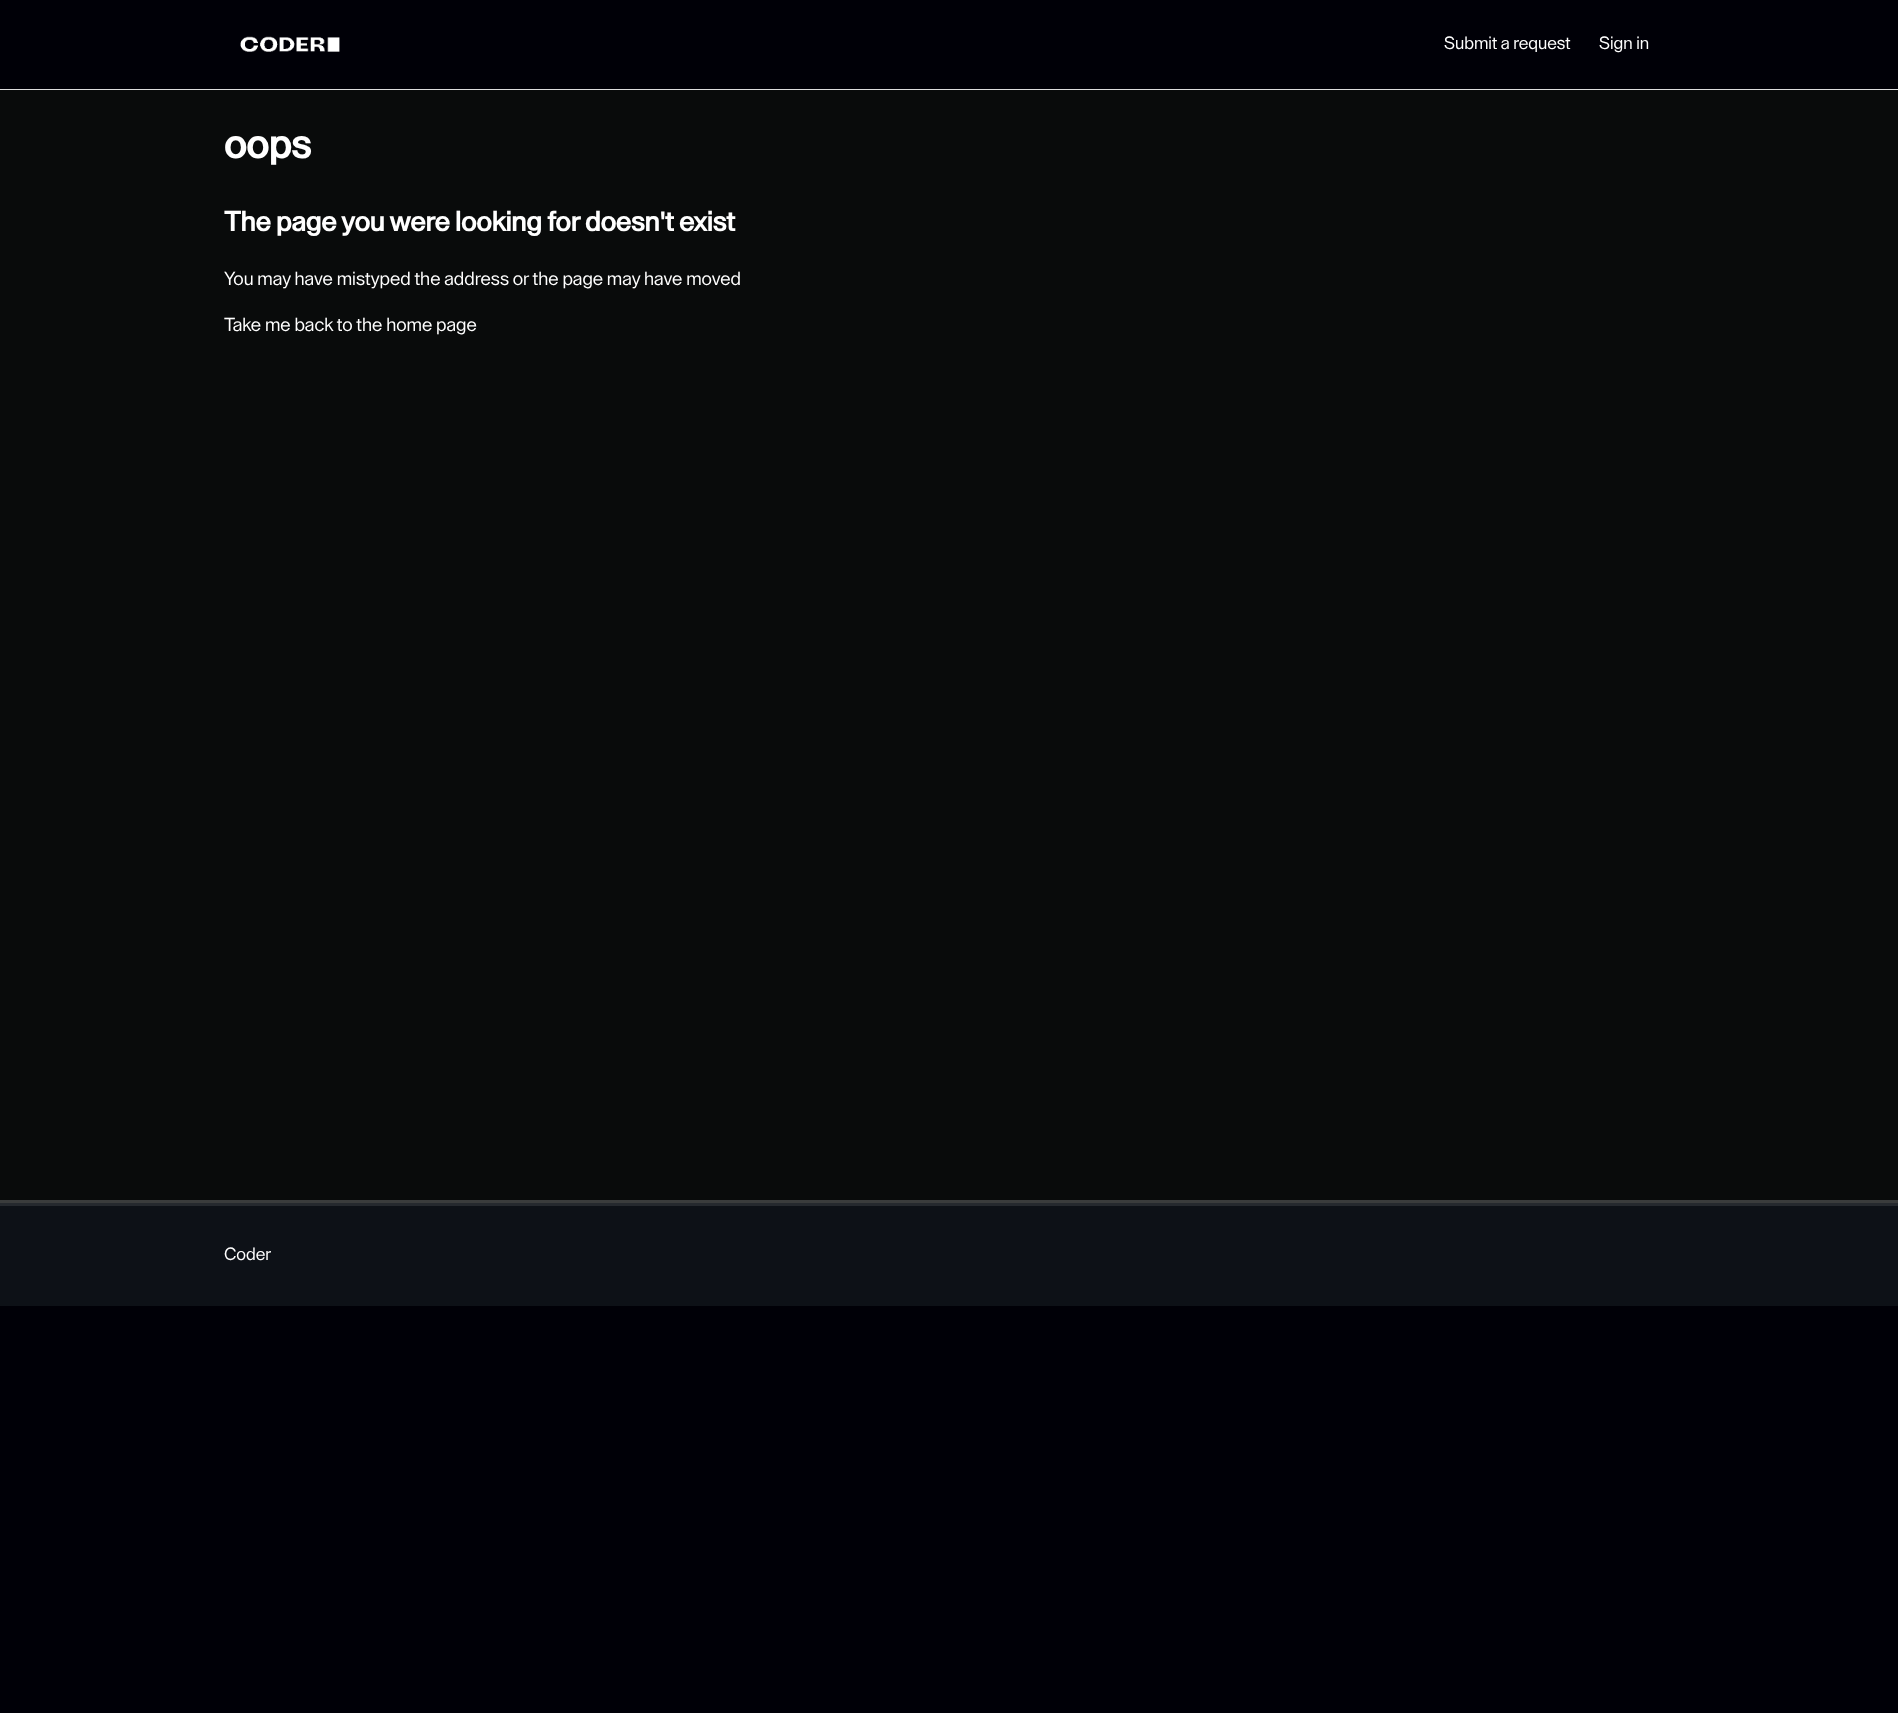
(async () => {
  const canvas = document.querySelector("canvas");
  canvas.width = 1898;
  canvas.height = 1713;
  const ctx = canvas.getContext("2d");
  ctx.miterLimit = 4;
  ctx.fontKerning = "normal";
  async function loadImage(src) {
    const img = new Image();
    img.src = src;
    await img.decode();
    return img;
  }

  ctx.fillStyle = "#000007";
  ctx.fillRect(0, 0, 1898, 1713);
  ctx.drawImage(await loadImage("img/1.png"), 240, 36, 100, 16);
  for (const [x, y, w, h, color] of [
    [0, 90, 1898, 1110, "#090b0b"],
    [0, 1200, 1898, 3, "#3a3c3c"],
    [0, 89, 1898, 1, "#dddddd"],
    [0, 1206, 1898, 100, "#0d1117"],
    [0, 1203, 1898, 3, "#25292e"],
  ]) {
    ctx.fillStyle = color;
    ctx.fillRect(x, y, w, h);
  }
  ctx.font = "17.5px 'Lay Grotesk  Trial'";
  ctx.fillStyle = "#ffffff";
  ctx.fillText("Submit a request", 1444, 49);
  ctx.fillText("Sign in", 1599, 49);
  ctx.font = "bold 40px 'Lay Grotesk  Trial'";
  ctx.fillText("oops", 224, 158);
  ctx.font = "bold 27.5px 'Lay Grotesk  Trial'";
  ctx.fillText("The page you were looking for doesn t exist", 224, 231);
  ctx.font = "bold 27.5px Geist";
  ctx.fillText("'", 660, 231);
  ctx.font = "18.75px 'Lay Grotesk  Trial'";
  ctx.fillText("You may have mistyped the address or the page may have moved", 224, 285);
  ctx.fillText("Take me back to the home page", 224, 331);
  ctx.font = "17.5px 'Lay Grotesk  Trial'";
  ctx.fillText("Coder", 224, 1260);
})();
